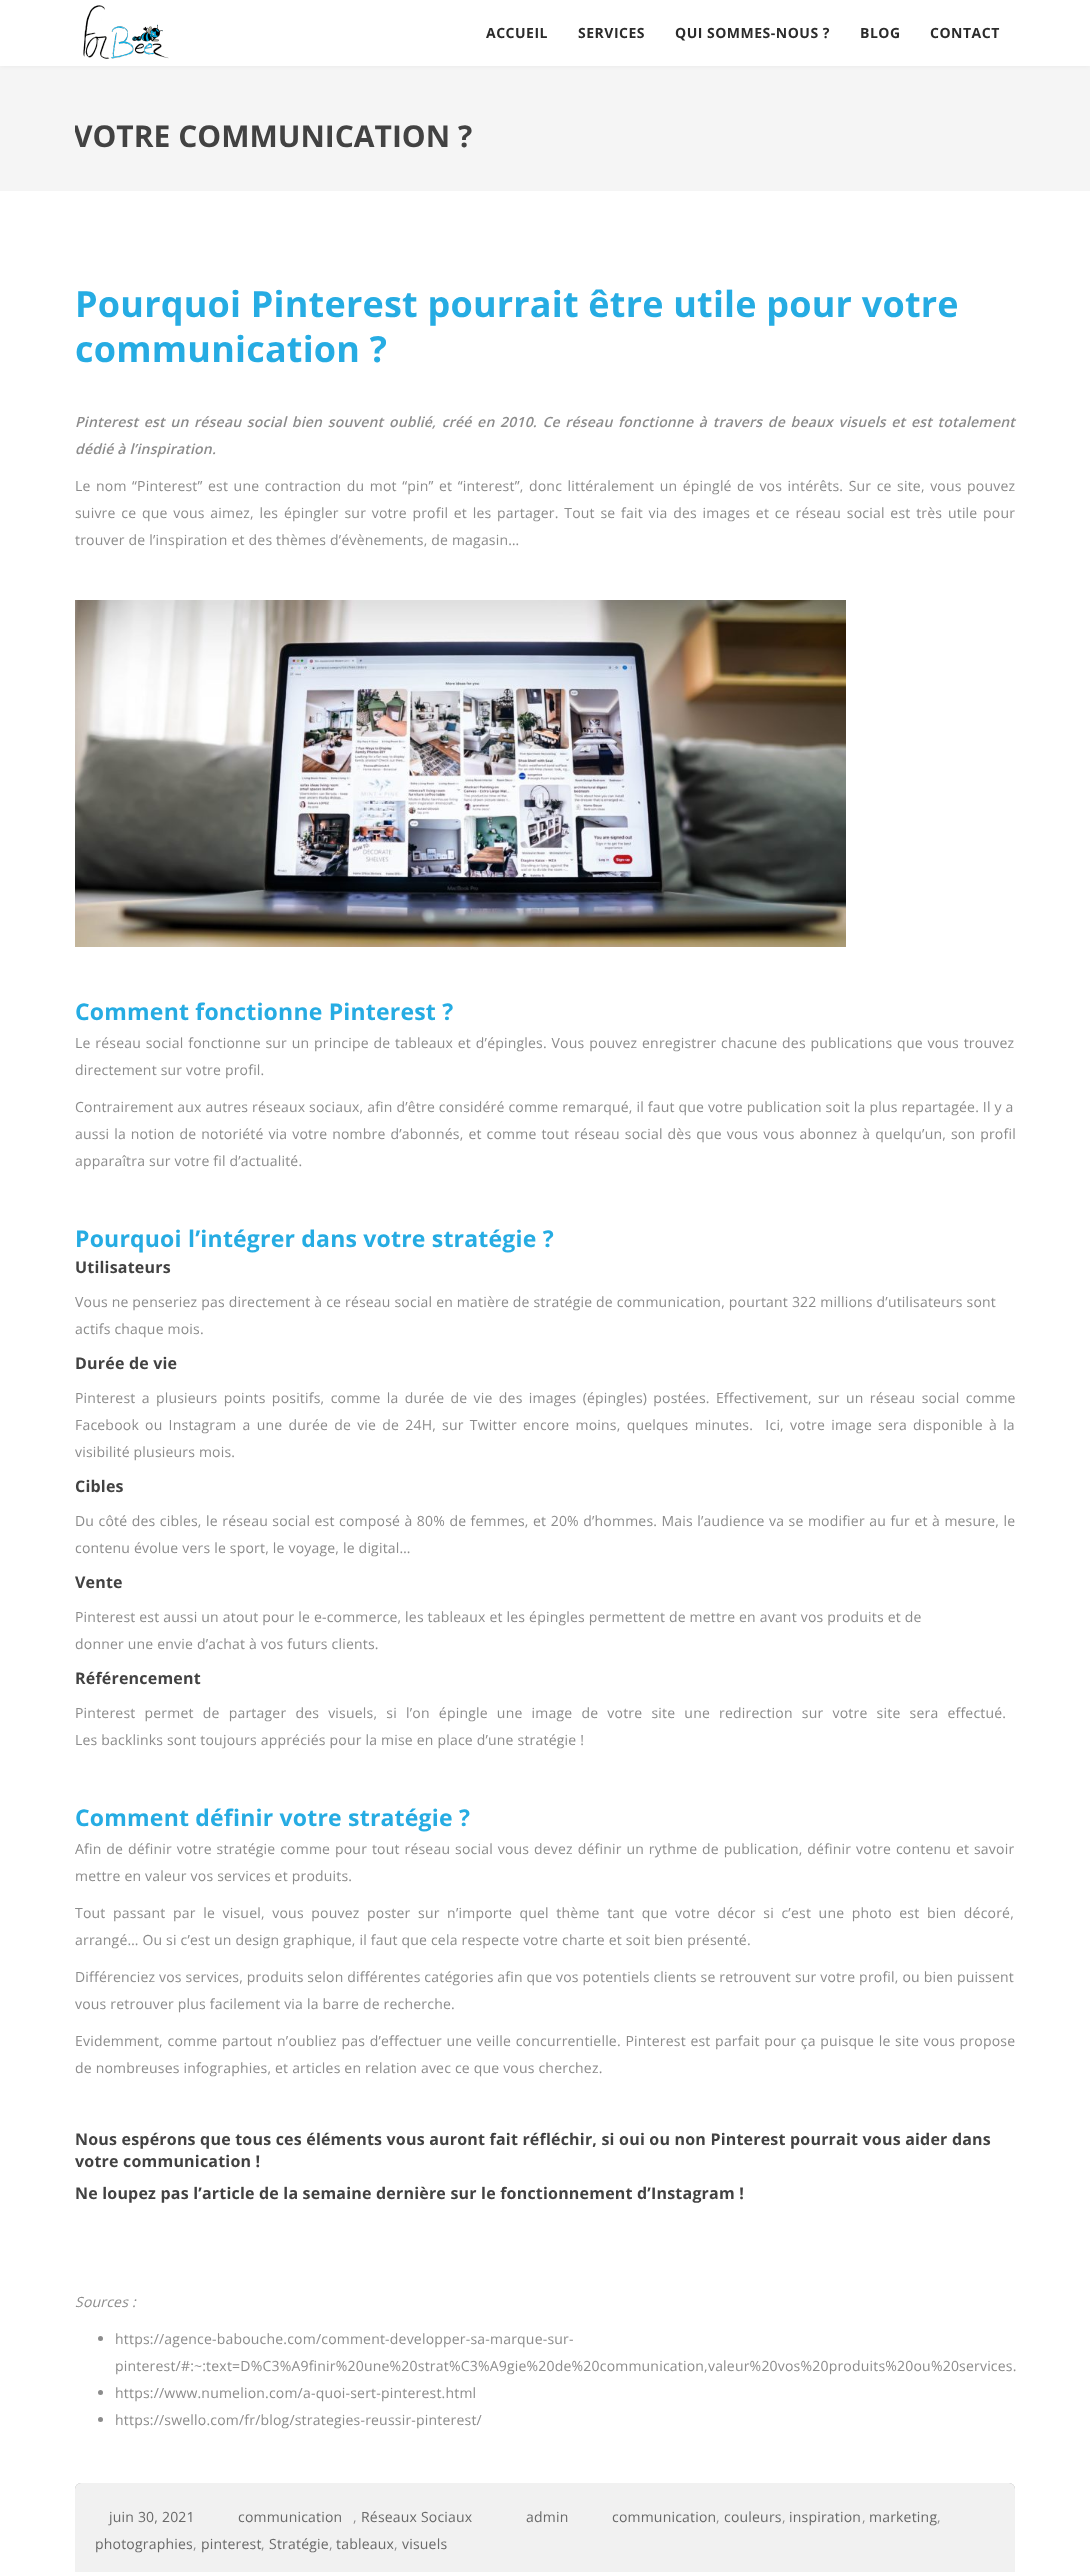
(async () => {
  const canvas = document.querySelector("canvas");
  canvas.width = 1090;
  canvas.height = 2572;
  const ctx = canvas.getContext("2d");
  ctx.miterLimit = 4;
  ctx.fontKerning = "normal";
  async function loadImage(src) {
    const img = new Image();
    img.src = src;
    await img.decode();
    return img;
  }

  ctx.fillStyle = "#ffffff";
  ctx.fillRect(0, 0, 1090, 2572);
  ctx.fillStyle = "#f5f5f5";
  ctx.fillRect(0, 66, 1090, 125);
  ctx.fillStyle = "rgba(0, 0, 0, 0.05)";
  ctx.filter = "blur(2.5px)";
  ctx.beginPath();
  ctx.rect(0, 0, 1090, 66);
  ctx.fill();
  ctx.filter = "none";
  ctx.fillStyle = "#ffffff";
  ctx.fillRect(0, 0, 1090, 66);
  ctx.drawImage(await loadImage("img/1.png"), 83, 5, 86, 54);
  ctx.drawImage(await loadImage("img/2.png"), 75, 600, 771, 347);
  ctx.fillStyle = "#8c8c8c";
  ctx.beginPath();
  ctx.arc(100.5, 2338.5, 2.5, 0, Math.PI * 2);
  ctx.fill();
  ctx.beginPath();
  ctx.arc(100.5, 2392.5, 2.5, 0, Math.PI * 2);
  ctx.fill();
  ctx.beginPath();
  ctx.arc(100.5, 2419.5, 2.5, 0, Math.PI * 2);
  ctx.fill();
  ctx.fillStyle = "rgba(0, 0, 0, 0.37)";
  ctx.filter = "blur(0.5px)";
  ctx.beginPath();
  ctx.roundRect(75, 2483, 940, 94, 6);
  ctx.fill();
  ctx.filter = "none";
  ctx.fillStyle = "#f1f1f1";
  ctx.beginPath();
  ctx.roundRect(75, 2483, 940, 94, 6);
  ctx.fill();
  ctx.letterSpacing = "0.5px";
  ctx.font = "bold 14px Open Sans";
  ctx.fillStyle = "#2b2b2b";
  for (const [text, x, y] of [
    ["ACCUEIL", 486, 38],
    ["SERVICES", 578, 38],
    ["QUI SOMMES-NOUS ?", 675, 38],
    ["BLOG", 860, 38],
    ["CONTACT", 930, 38],
  ]) {
    ctx.fillText(text, x, y);
  }
  ctx.save();
  ctx.beginPath();
  ctx.rect(75, 31, 698, 140);
  ctx.clip();
  ctx.letterSpacing = "0px";
  ctx.font = "bold 30px Open Sans";
  ctx.fillStyle = "#424242";
  ctx.fillText("VOTRE COMMUNICATION ?", 73, 147);
  ctx.restore();
  ctx.letterSpacing = "0.2px";
  ctx.font = "bold 36px Open Sans";
  ctx.fillStyle = "#26ace3";
  ctx.fillText("Pourquoi Pinterest pourrait être utile pour votre", 75, 317);
  ctx.fillText("communication ?", 75, 362);
  ctx.wordSpacing = "1.7px";
  ctx.font = "italic 600 14px Open Sans";
  ctx.fillStyle = "#8c8c8c";
  ctx.fillText("Pinterest est un réseau social bien souvent oublié, créé en 2010. Ce réseau fonctionne à travers de beaux visuels et est totalement", 75, 427);
  ctx.wordSpacing = "0px";
  ctx.fillText("dédié à l’inspiration.", 75, 454);
  ctx.wordSpacing = "1.6px";
  ctx.font = "14px Open Sans";
  ctx.fillText("Le nom “Pinterest” est une contraction du mot “pin” et “interest”, donc littéralement un épinglé de vos intérêts. Sur ce site, vous pouvez", 75, 491);
  ctx.wordSpacing = "1.85px";
  ctx.fillText("suivre ce que vous aimez, les épingler sur votre profil et les partager. Tout se fait via des images et ce réseau social est très utile pour", 75, 518);
  ctx.wordSpacing = "0px";
  ctx.fillText("trouver de l’inspiration et des thèmes d’évènements, de magasin…", 75, 545);
  ctx.font = "bold 23px Open Sans";
  ctx.fillStyle = "#26ace3";
  ctx.fillText("Comment fonctionne Pinterest ?", 75, 1020);
  ctx.wordSpacing = "0.9px";
  ctx.font = "14px Open Sans";
  ctx.fillStyle = "#8c8c8c";
  ctx.fillText("Le réseau social fonctionne sur un principe de tableaux et d’épingles. Vous pouvez enregistrer chacune des publications que vous trouvez", 75, 1048);
  ctx.wordSpacing = "0px";
  ctx.fillText("directement sur votre profil.", 75, 1075);
  ctx.fillText("Contrairement aux autres réseaux sociaux, afin d’être considéré comme remarqué, il faut que votre publication soit la plus repartagée. Il y a", 75, 1112);
  ctx.wordSpacing = "1.1px";
  ctx.fillText("aussi la notion de notoriété via votre nombre d’abonnés, et comme tout réseau social dès que vous vous abonnez à quelqu’un, son profil", 75, 1139);
  ctx.wordSpacing = "0px";
  ctx.fillText("apparaîtra sur votre fil d’actualité.", 75, 1166);
  ctx.font = "bold 23px Open Sans";
  ctx.fillStyle = "#26ace3";
  ctx.fillText("Pourquoi l’intégrer dans votre stratégie ?", 75, 1247);
  ctx.font = "bold 16px Open Sans";
  ctx.fillStyle = "#424242";
  ctx.fillText("Utilisateurs", 75, 1273);
  ctx.font = "14px Open Sans";
  ctx.fillStyle = "#8c8c8c";
  ctx.fillText("Vous ne penseriez pas directement à ce réseau social en matière de stratégie de communication, pourtant 322 millions d’utilisateurs sont", 75, 1307);
  ctx.fillText("actifs chaque mois.", 75, 1334);
  ctx.font = "bold 16px Open Sans";
  ctx.fillStyle = "#424242";
  ctx.fillText("Durée de vie", 75, 1369);
  ctx.wordSpacing = "2.4px";
  ctx.font = "14px Open Sans";
  ctx.fillStyle = "#8c8c8c";
  ctx.fillText("Pinterest a plusieurs points positifs, comme la durée de vie des images (épingles) postées. Effectivement, sur un réseau social comme", 75, 1403);
  ctx.wordSpacing = "2.3px";
  ctx.fillText("Facebook ou Instagram a une durée de vie de 24H, sur Twitter encore moins, quelques minutes.  Ici, votre image sera disponible à la", 75, 1430);
  ctx.wordSpacing = "0px";
  ctx.fillText("visibilité plusieurs mois.", 75, 1457);
  ctx.font = "bold 16px Open Sans";
  ctx.fillStyle = "#424242";
  ctx.fillText("Cibles", 75, 1492);
  ctx.wordSpacing = "0.55px";
  ctx.font = "14px Open Sans";
  ctx.fillStyle = "#8c8c8c";
  ctx.fillText("Du côté des cibles, le réseau social est composé à 80% de femmes, et 20% d’hommes. Mais l’audience va se modifier au fur et à mesure, le", 75, 1526);
  ctx.wordSpacing = "0px";
  ctx.fillText("contenu évolue vers le sport, le voyage, le digital…", 75, 1553);
  ctx.font = "bold 16px Open Sans";
  ctx.fillStyle = "#424242";
  ctx.fillText("Vente", 75, 1588);
  ctx.font = "14px Open Sans";
  ctx.fillStyle = "#8c8c8c";
  ctx.fillText("Pinterest est aussi un atout pour le e-commerce, les tableaux et les épingles permettent de mettre en avant vos produits et de", 75, 1622);
  ctx.fillText("donner une envie d’achat à vos futurs clients.", 75, 1649);
  ctx.font = "bold 16px Open Sans";
  ctx.fillStyle = "#424242";
  ctx.fillText("Référencement", 75, 1684);
  ctx.wordSpacing = "5.25px";
  ctx.font = "14px Open Sans";
  ctx.fillStyle = "#8c8c8c";
  ctx.fillText("Pinterest permet de partager des visuels, si l’on épingle une image de votre site une redirection sur votre site sera effectué.", 75, 1718);
  ctx.wordSpacing = "0px";
  ctx.fillText("Les backlinks sont toujours appréciés pour la mise en place d’une stratégie !", 75, 1745);
  ctx.font = "bold 23px Open Sans";
  ctx.fillStyle = "#26ace3";
  ctx.fillText("Comment définir votre stratégie ?", 75, 1826);
  ctx.wordSpacing = "1px";
  ctx.font = "14px Open Sans";
  ctx.fillStyle = "#8c8c8c";
  ctx.fillText("Afin de définir votre stratégie comme pour tout réseau social vous devez définir un rythme de publication, définir votre contenu et savoir", 75, 1854);
  ctx.wordSpacing = "0px";
  ctx.fillText("mettre en valeur vos services et produits.", 75, 1881);
  ctx.wordSpacing = "3.7px";
  ctx.fillText("Tout passant par le visuel, vous pouvez poster sur n’importe quel thème tant que votre décor si c’est une photo est bien décoré,", 75, 1918);
  ctx.wordSpacing = "0px";
  for (const [text, x, y] of [
    ["arrangé… Ou si c’est un design graphique, il faut que cela respecte votre charte et soit bien présenté.", 75, 1945],
    ["Différenciez vos services, produits selon différentes catégories afin que vos potentiels clients se retrouvent sur votre profil, ou bien puissent", 75, 1982],
    ["vous retrouver plus facilement via la barre de recherche.", 75, 2009],
  ]) {
    ctx.fillText(text, x, y);
  }
  ctx.wordSpacing = "0.75px";
  ctx.fillText("Evidemment, comme partout n’oubliez pas d’effectuer une veille concurrentielle. Pinterest est parfait pour ça puisque le site vous propose", 75, 2046);
  ctx.wordSpacing = "0px";
  ctx.fillText("de nombreuses infographies, et articles en relation avec ce que vous cherchez.", 75, 2073);
  ctx.font = "bold 16px Open Sans";
  ctx.fillStyle = "#424242";
  for (const [text, x, y] of [
    ["Nous espérons que tous ces éléments vous auront fait réfléchir, si oui ou non Pinterest pourrait vous aider dans", 75, 2145],
    ["votre communication !", 75, 2167],
    ["Ne loupez pas l’article de la semaine dernière sur le fonctionnement d’Instagram !", 75, 2199],
  ]) {
    ctx.fillText(text, x, y);
  }
  ctx.font = "italic 14px Open Sans";
  ctx.fillStyle = "#8c8c8c";
  ctx.fillText("Sources :", 75, 2307);
  ctx.font = "14px Open Sans";
  for (const [text, x, y] of [
    ["https://agence-babouche.com/comment-developper-sa-marque-sur-", 115, 2344],
    ["pinterest/#:~:text=D%C3%A9finir%20une%20strat%C3%A9gie%20de%20communication,valeur%20vos%20produits%20ou%20services.", 115, 2371],
    ["https://www.numelion.com/a-quoi-sert-pinterest.html", 115, 2398],
    ["https://swello.com/fr/blog/strategies-reussir-pinterest/", 115, 2425],
  ]) {
    ctx.fillText(text, x, y);
  }
  ctx.fillStyle = "#696969";
  ctx.fillText("juin 30, 2021", 109, 2522);
  ctx.fillText("communication", 238, 2522);
  ctx.fillStyle = "#8c8c8c";
  ctx.fillText(",", 353, 2522);
  ctx.fillStyle = "#696969";
  for (const [text, x, y] of [
    ["Réseaux Sociaux", 361, 2522],
    ["admin", 526, 2522],
    ["communication", 612, 2522],
  ]) {
    ctx.fillText(text, x, y);
  }
  ctx.fillStyle = "#8c8c8c";
  ctx.fillText(",", 716, 2522);
  ctx.fillStyle = "#696969";
  ctx.fillText("couleurs", 724, 2522);
  ctx.fillStyle = "#8c8c8c";
  ctx.fillText(",", 782, 2522);
  ctx.fillStyle = "#696969";
  ctx.fillText("inspiration", 789, 2522);
  ctx.fillStyle = "#8c8c8c";
  ctx.fillText(",", 862, 2522);
  ctx.fillStyle = "#696969";
  ctx.fillText("marketing", 869, 2522);
  ctx.fillStyle = "#8c8c8c";
  ctx.fillText(",", 937, 2522);
  ctx.fillStyle = "#696969";
  ctx.fillText("photographies", 95, 2549);
  ctx.fillStyle = "#8c8c8c";
  ctx.fillText(",", 193, 2549);
  ctx.fillStyle = "#696969";
  ctx.fillText("pinterest", 201, 2549);
  ctx.fillStyle = "#8c8c8c";
  ctx.fillText(",", 261, 2549);
  ctx.fillStyle = "#696969";
  ctx.fillText("Stratégie", 269, 2549);
  ctx.fillStyle = "#8c8c8c";
  ctx.fillText(",", 329, 2549);
  ctx.fillStyle = "#696969";
  ctx.fillText("tableaux", 336, 2549);
  ctx.fillStyle = "#8c8c8c";
  ctx.fillText(",", 394, 2549);
  ctx.fillStyle = "#696969";
  ctx.fillText("visuels", 402, 2549);
})();
